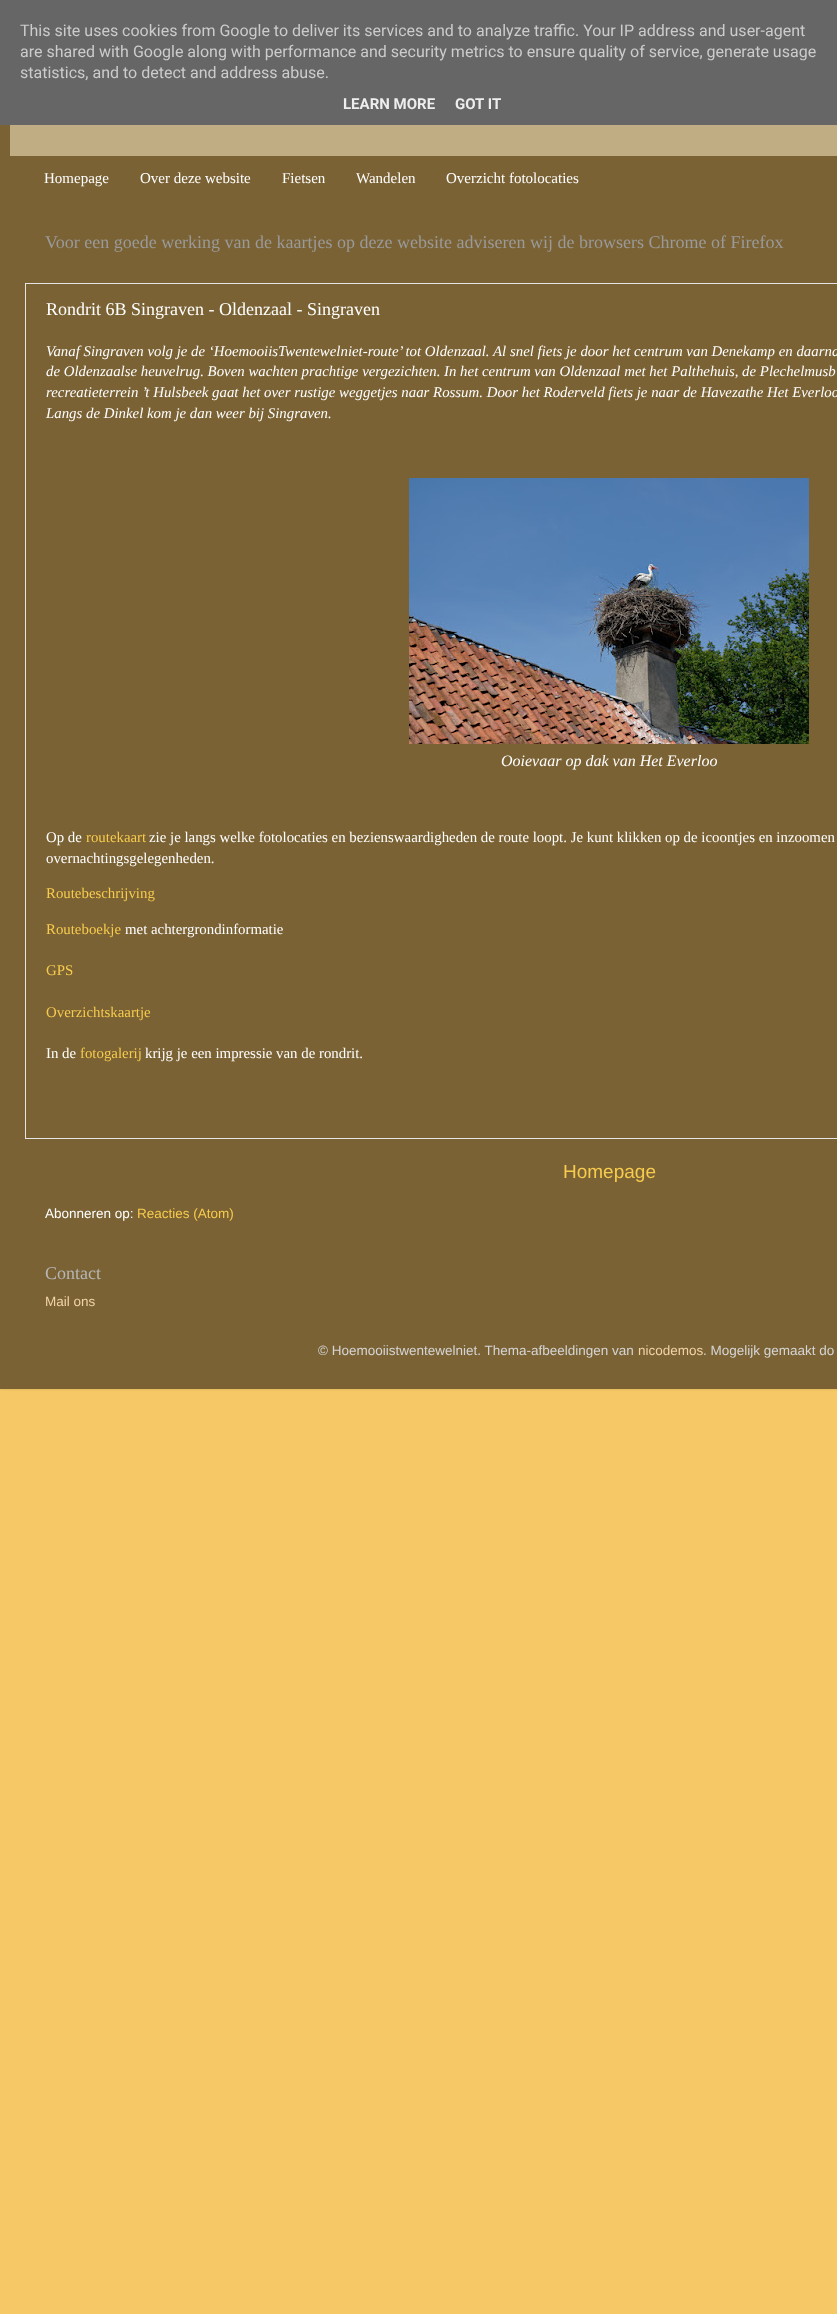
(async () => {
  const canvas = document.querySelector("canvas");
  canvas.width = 837;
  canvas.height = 2314;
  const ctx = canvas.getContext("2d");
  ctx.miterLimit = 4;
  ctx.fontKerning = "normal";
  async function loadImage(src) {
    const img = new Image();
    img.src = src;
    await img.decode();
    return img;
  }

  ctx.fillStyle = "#f6c866";
  ctx.fillRect(0, 0, 837, 2314);
  ctx.fillStyle = "rgba(0, 0, 0, 0.15)";
  ctx.filter = "blur(1.5px)";
  ctx.beginPath();
  ctx.rect(0, 30, 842, 1359);
  ctx.fill();
  ctx.filter = "none";
  for (const [x, y, w, h, color] of [
    [0, 0, 837, 125, "#666666"],
    [0, 125, 837, 1264, "#7a6234"],
    [10, 125, 827, 31, "#c1ad83"],
  ]) {
    ctx.fillStyle = color;
    ctx.fillRect(x, y, w, h);
  }
  ctx.strokeStyle = "#e5e5e5";
  ctx.strokeRect(25.5, 283.5, 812, 855);
  ctx.drawImage(await loadImage("img/1.png"), 409, 478, 400, 266);
  ctx.font = "16px Roboto";
  ctx.fillStyle = "#cccccc";
  for (const [text, x, y] of [
    ["This site uses cookies from Google to deliver its services and to analyze traffic. Your IP address and user-agent", 20, 36],
    ["are shared with Google along with performance and security metrics to ensure quality of service, generate usage", 20, 57],
    ["statistics, and to detect and address abuse.", 20, 78],
  ]) {
    ctx.fillText(text, x, y);
  }
  ctx.font = "bold 15px Roboto";
  ctx.fillStyle = "#eeeeee";
  ctx.fillText("LEARN MORE", 343, 109);
  ctx.fillText("GOT IT", 455, 109);
  ctx.font = "15px Liberation Serif";
  ctx.fillStyle = "#ffffff";
  for (const [text, x, y] of [
    ["Homepage", 44, 183],
    ["Over deze website", 140, 183],
    ["Fietsen", 282, 183],
    ["Wandelen", 356, 183],
    ["Overzicht fotolocaties", 446, 183],
  ]) {
    ctx.fillText(text, x, y);
  }
  ctx.font = "18px Liberation Serif";
  ctx.fillStyle = "#9a9a9a";
  ctx.fillText("Voor een goede werking van de kaartjes op deze website adviseren wij de browsers Chrome of Firefox", 45, 248);
  ctx.fillStyle = "#ffffff";
  ctx.fillText("Rondrit 6B Singraven - Oldenzaal - Singraven", 46, 315);
  ctx.font = "italic 14.85px Liberation Serif";
  for (const [text, x, y] of [
    ["Vanaf Singraven volg je de ‘HoemooiisTwentewelniet-route’ tot Oldenzaal. Al snel fiets je door het centrum van Denekamp en daarna", 46, 356],
    ["de Oldenzaalse heuvelrug. Boven wachten prachtige vergezichten. In het centrum van Oldenzaal met het Palthehuis, de Plechelmusb", 46, 376],
    ["recreatieterrein ’t Hulsbeek gaat het over rustige weggetjes naar Rossum. Door het Roderveld fiets je naar de Havezathe Het Everloo", 46, 397],
    ["Langs de Dinkel kom je dan weer bij Singraven.", 46, 418],
  ]) {
    ctx.fillText(text, x, y);
  }
  ctx.font = "italic 16px Liberation Serif";
  ctx.fillText("Ooievaar op dak van Het Everloo", 501, 766);
  ctx.font = "14.85px Liberation Serif";
  ctx.fillText("Op de", 46, 842);
  ctx.fillStyle = "#f7cb4d";
  ctx.fillText("routekaart", 86, 842);
  ctx.fillStyle = "#ffffff";
  ctx.fillText("zie je langs welke fotolocaties en bezienswaardigheden de route loopt. Je kunt klikken op de icoontjes en inzoomen", 149, 842);
  ctx.fillText("overnachtingsgelegenheden.", 46, 863);
  ctx.fillStyle = "#f7cb4d";
  ctx.fillText("Routebeschrijving", 46, 898);
  ctx.fillText("Routeboekje", 46, 934);
  ctx.fillStyle = "#ffffff";
  ctx.fillText("met achtergrondinformatie", 125, 934);
  ctx.fillStyle = "#f7cb4d";
  ctx.fillText("GPS", 46, 975);
  ctx.fillText("Overzichtskaartje", 46, 1017);
  ctx.fillStyle = "#ffffff";
  ctx.fillText("In de", 46, 1058);
  ctx.fillStyle = "#f7cb4d";
  ctx.fillText("fotogalerij", 80, 1058);
  ctx.fillStyle = "#ffffff";
  ctx.fillText("krijg je een impressie van de rondrit.", 145, 1058);
  ctx.font = "19px Liberation Sans";
  ctx.fillStyle = "#f7cb4d";
  ctx.fillText("Homepage", 563, 1178);
  ctx.font = "13.5px Liberation Sans";
  ctx.fillStyle = "#ffffff";
  ctx.fillText("Abonneren op:", 45, 1218);
  ctx.fillStyle = "#f7cb4d";
  ctx.fillText("Reacties (Atom)", 137, 1218);
  ctx.font = "18px Liberation Serif";
  ctx.fillStyle = "#b6b6b6";
  ctx.fillText("Contact", 45, 1279);
  ctx.font = "13.5px Liberation Sans";
  ctx.fillStyle = "#f1d3a9";
  ctx.fillText("Mail ons", 45, 1306);
  ctx.fillStyle = "#d5d5d5";
  ctx.fillText("© Hoemooiistwentewelniet. Thema-afbeeldingen van", 318, 1355);
  ctx.fillStyle = "#f1d3a9";
  ctx.fillText("nicodemos", 638, 1355);
  ctx.fillStyle = "#d5d5d5";
  ctx.fillText(". Mogelijk gemaakt do", 703, 1355);
})();
